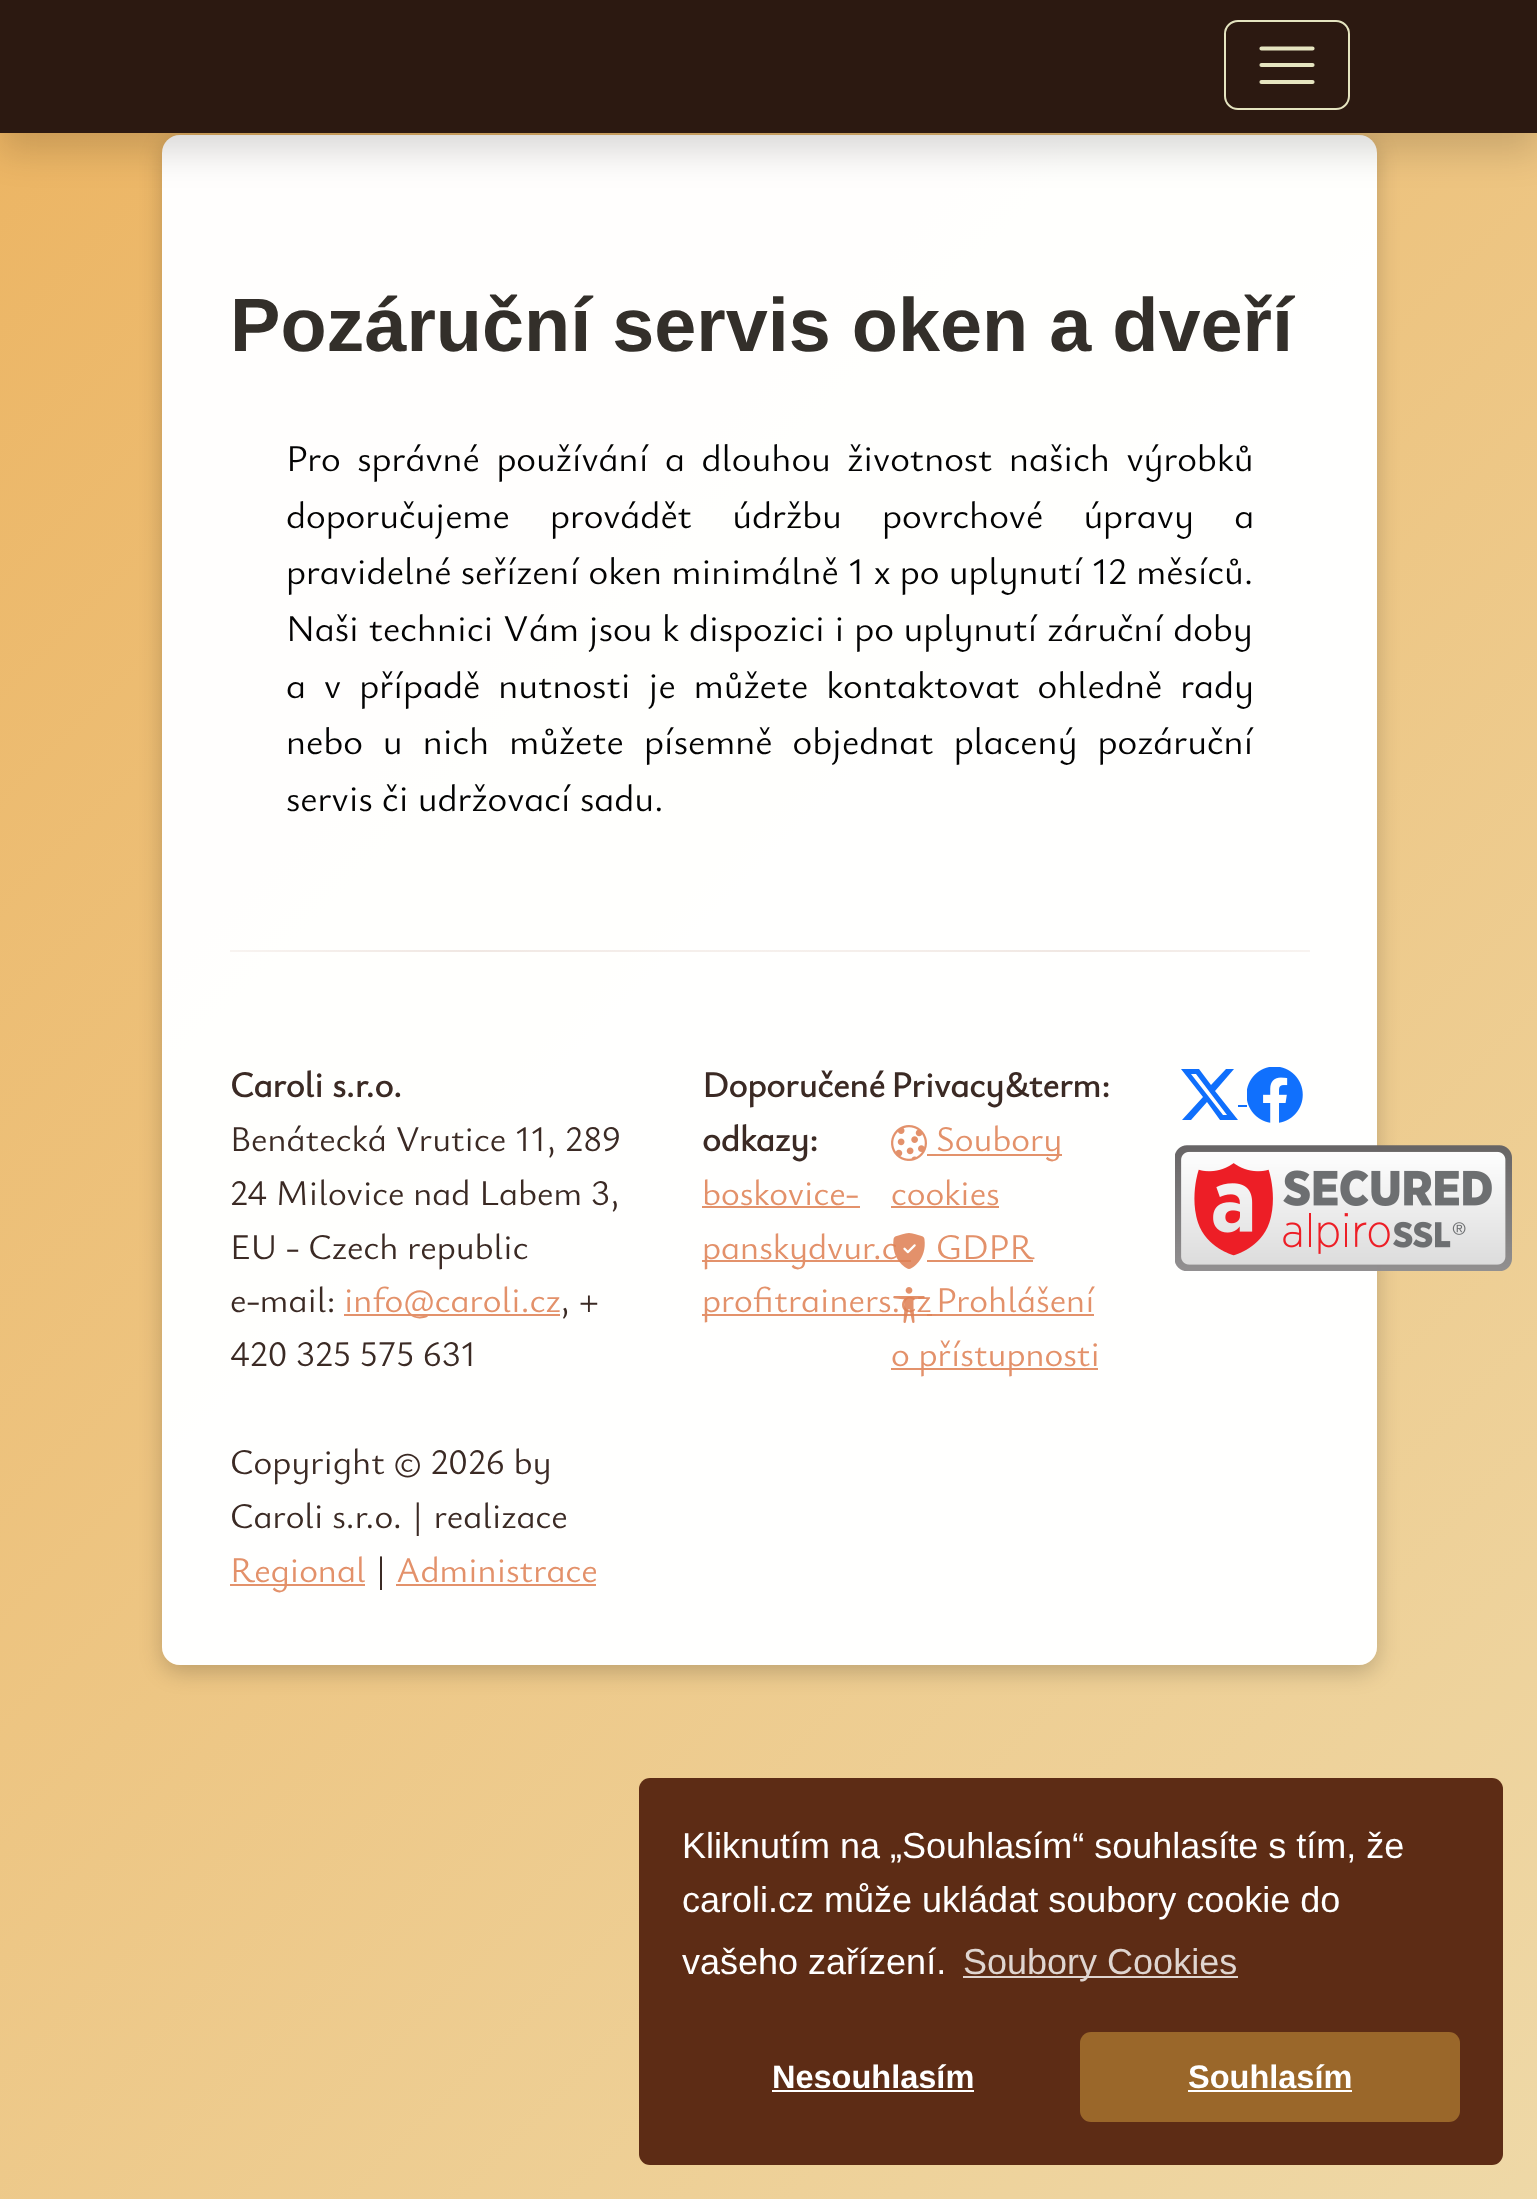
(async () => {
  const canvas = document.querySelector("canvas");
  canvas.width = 1537;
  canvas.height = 2199;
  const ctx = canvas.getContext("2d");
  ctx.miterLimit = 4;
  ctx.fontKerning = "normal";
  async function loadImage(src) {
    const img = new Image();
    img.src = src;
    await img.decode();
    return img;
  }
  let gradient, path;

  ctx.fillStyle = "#ffffff";
  ctx.fillRect(0, 0, 1537, 2199);
  gradient = ctx.createLinearGradient(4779, 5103, -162, 162);
  gradient.addColorStop(0, "#f6f2e4");
  gradient.addColorStop(0.25, "#f3e5ae");
  gradient.addColorStop(0.51, "#efe3bb");
  gradient.addColorStop(1, "#ecb462");
  ctx.fillStyle = gradient;
  ctx.fillRect(0, 133, 1537, 2066);
  ctx.save();
  path = new Path2D("M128 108H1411V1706H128ZM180 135H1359C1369 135 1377 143 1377 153V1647C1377 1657 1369 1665 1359 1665H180C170 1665 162 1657 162 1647V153C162 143 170 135 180 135Z");
  ctx.clip(path, "evenodd");
  ctx.fillStyle = "rgba(0, 0, 0, 0.2)";
  ctx.filter = "blur(11px)";
  ctx.beginPath();
  ctx.roundRect(162, 142, 1215, 1530, 18);
  ctx.fill();
  ctx.filter = "none";
  ctx.restore();
  ctx.fillStyle = "rgba(255, 255, 255, 0.99)";
  ctx.beginPath();
  ctx.roundRect(162, 135, 1215, 1530, 18);
  ctx.fill();
  ctx.fillStyle = "rgba(0, 0, 0, 0.15)";
  ctx.filter = "blur(18px)";
  ctx.beginPath();
  ctx.rect(0, 18, 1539, 133);
  ctx.fill();
  ctx.filter = "none";
  ctx.fillStyle = "#2c1911";
  ctx.fillRect(0, 0, 1537, 133);
  ctx.beginPath();
  ctx.roundRect(1225, 21, 124, 88, 13);
  ctx.strokeStyle = "#e5e4c0";
  ctx.lineWidth = 2;
  ctx.stroke();
  path = new Path2D("M1261.5 48.5H1312.5M1261.5 65H1312.5M1261.5 82H1312.5");
  ctx.lineWidth = 4.2;
  ctx.lineCap = "round";
  ctx.stroke(path);
  gradient = ctx.createRadialGradient(770, 454102.5, 0, 770, 454102.5, 764);
  gradient.addColorStop(0, "#fffefc");
  gradient.addColorStop(0.5, "#f0e7e2");
  gradient.addColorStop(1, "#fffefc");
  ctx.fillStyle = gradient;
  ctx.beginPath();
  ctx.rect(230, 950, 1080, 2);
  ctx.save();
  ctx.clip();
  ctx.scale(1, 1.6 / 764);
  ctx.fillRect(0, 0, 1537, 1050023);
  ctx.restore();
  for (const [x, y, w, h, color] of [
    [344, 1314, 216, 2, "#e3926b"],
    [230, 1584, 135, 2, "#e3926b"],
    [396, 1584, 200, 2, "#e3926b"],
    [702, 1206, 158, 2, "#e3926b"],
    [702, 1260, 209, 2, "#e3926b"],
    [702, 1314, 230, 2, "#e3926b"],
  ]) {
    ctx.fillStyle = color;
    ctx.fillRect(x, y, w, h);
  }
  ctx.drawImage(await loadImage("img/1.png"), 891, 1125, 36, 36);
  for (const [x, y, w, h, color] of [
    [927, 1154, 9, 2, "#e2916a"],
    [936, 1154, 126, 2, "#e3926b"],
    [891, 1206, 108, 2, "#e2916a"],
    [927, 1260, 106, 2, "#e2916a"],
    [936, 1314, 158, 2, "#e3926b"],
    [891, 1368, 207, 2, "#e3926b"],
  ]) {
    ctx.fillStyle = color;
    ctx.fillRect(x, y, w, h);
  }
  ctx.fillStyle = "#0f6ffc";
  path = new Path2D("M1226 1069H1234L1215 1091L1238 1120H1220L1207 1102L1191 1120H1182L1203 1097L1181 1069H1199L1211 1085ZM1223 1115H1227L1196 1074H1191Z");
  ctx.fill(path);
  ctx.fillRect(1238, 1105, 9, 2);
  ctx.drawImage(await loadImage("img/4.png"), 1247, 1067, 56, 56);
  ctx.drawImage(await loadImage("img/5.png"), 1175, 1145, 337, 126);
  ctx.fillStyle = "#5d2c15";
  ctx.beginPath();
  ctx.roundRect(639, 1778, 864, 387, 11);
  ctx.fill();
  ctx.fillStyle = "#dfd5d0";
  ctx.fillRect(963, 1976, 275, 2);
  ctx.fillStyle = "#ffffff";
  ctx.fillRect(772, 2090, 202, 2);
  ctx.fillStyle = "#9a672a";
  ctx.beginPath();
  ctx.roundRect(1080, 2032, 380, 90, 11);
  ctx.fill();
  ctx.fillStyle = "#ffffff";
  ctx.fillRect(1188, 2090, 164, 2);
  ctx.font = "bold 75.6px Liberation Sans";
  ctx.fillStyle = "#332f2a";
  ctx.fillText("Pozáruční servis oken a dveří", 230, 351);
  ctx.wordSpacing = "7.25px";
  ctx.font = "37.8px Ysabeau Infant";
  ctx.fillStyle = "#030303";
  ctx.fillText("Pro správné používání a dlouhou životnost našich výrobků", 286, 471);
  ctx.wordSpacing = "31px";
  ctx.fillText("doporučujeme provádět údržbu povrchové úpravy a", 286, 528);
  ctx.wordSpacing = "0px";
  ctx.fillText("pravidelné seřízení oken minimálně 1 x po uplynutí 12 měsíců.", 286, 584);
  ctx.wordSpacing = "0.5px";
  ctx.fillText("Naši technici Vám jsou k dispozici i po uplynutí záruční doby", 286, 641);
  ctx.wordSpacing = "8.75px";
  ctx.fillText("a v případě nutnosti je můžete kontaktovat ohledně rady", 286, 698);
  ctx.wordSpacing = "10.75px";
  ctx.fillText("nebo u nich můžete písemně objednat placený pozáruční", 286, 754);
  ctx.wordSpacing = "0px";
  ctx.fillText("servis či udržovací sadu.", 286, 811);
  ctx.font = "bold 36px Ysabeau Infant";
  ctx.fillStyle = "#3b2a24";
  ctx.fillText("Caroli s.r.o.", 230, 1097);
  ctx.font = "36px Ysabeau Infant";
  for (const [text, x, y] of [
    ["Benátecká Vrutice 11, 289", 230, 1151],
    ["24 Milovice nad Labem 3,", 230, 1205],
    ["EU - Czech republic", 230, 1259],
    ["e-mail:", 230, 1312],
  ]) {
    ctx.fillText(text, x, y);
  }
  ctx.fillStyle = "#e3916a";
  ctx.fillText("info@caroli.cz", 344, 1312);
  ctx.fillStyle = "#3b2a24";
  for (const [text, x, y] of [
    [", +", 560, 1312],
    ["420 325 575 631", 230, 1366],
    ["Copyright © 2026 by", 230, 1474],
    ["Caroli s.r.o. | realizace", 230, 1528],
  ]) {
    ctx.fillText(text, x, y);
  }
  ctx.fillStyle = "#e3916a";
  ctx.fillText("Regional", 230, 1582);
  ctx.fillStyle = "#3b2a24";
  ctx.fillText("|", 374, 1582);
  ctx.fillStyle = "#e3916a";
  ctx.fillText("Administrace", 396, 1582);
  ctx.font = "bold 36px Ysabeau Infant";
  ctx.fillStyle = "#3b2a24";
  ctx.fillText("Doporučené", 702, 1097);
  ctx.fillText("odkazy:", 702, 1151);
  ctx.font = "36px Ysabeau Infant";
  ctx.fillStyle = "#e3916a";
  for (const [text, x, y] of [
    ["boskovice-", 702, 1205],
    ["panskydvur.c", 702, 1259],
    ["profitrainers.cz", 702, 1312],
  ]) {
    ctx.fillText(text, x, y);
  }
  ctx.font = "bold 36px Ysabeau Infant";
  ctx.fillStyle = "#3b2a24";
  ctx.fillText("Privacy&term:", 891, 1097);
  ctx.font = "36px Ysabeau Infant";
  ctx.fillStyle = "#e3916a";
  ctx.fillText("Soubory", 936, 1151);
  ctx.fillText("cookies", 891, 1205);
  ctx.drawImage(await loadImage("img/2.png"), 893, 1233, 32, 36);
  ctx.fillText("GDPR", 936, 1259);
  ctx.drawImage(await loadImage("img/3.png"), 893, 1287, 32, 36);
  ctx.fillText("Prohlášení", 936, 1312);
  ctx.fillStyle = "rgba(222, 129, 84, 0.87)";
  ctx.fillRect(927, 1314, 9, 2);
  ctx.fillStyle = "#e3916a";
  ctx.fillText("o přístupnosti", 891, 1366);
  ctx.font = "36px Liberation Sans";
  ctx.fillStyle = "#ffffff";
  for (const [text, x, y] of [
    ["Kliknutím na „Souhlasím“ souhlasíte s tím, že", 682, 1858],
    ["caroli.cz může ukládat soubory cookie do", 682, 1912],
    ["vašeho zařízení.", 682, 1974],
  ]) {
    ctx.fillText(text, x, y);
  }
  ctx.fillStyle = "#dfd5d0";
  ctx.fillText("Soubory Cookies", 963, 1974);
  ctx.font = "bold 32.5px Liberation Sans";
  ctx.fillStyle = "#ffffff";
  ctx.fillText("Nesouhlasím", 772, 2088);
  ctx.fillText("Souhlasím", 1188, 2088);
})();
